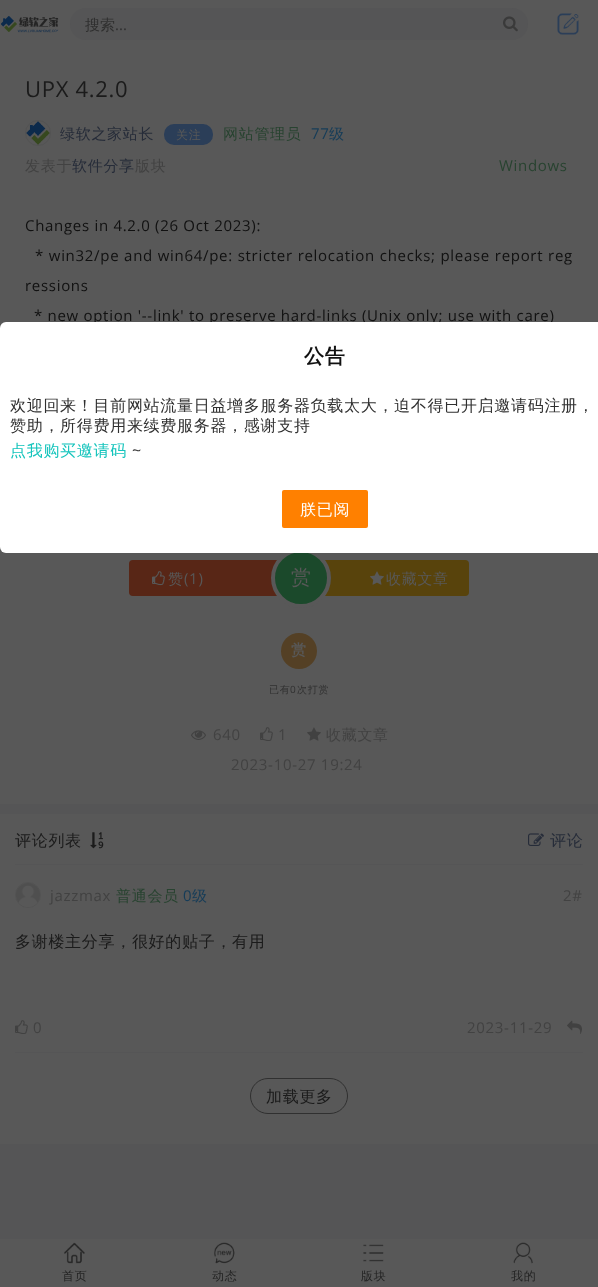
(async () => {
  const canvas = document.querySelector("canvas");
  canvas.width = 598;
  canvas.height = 1287;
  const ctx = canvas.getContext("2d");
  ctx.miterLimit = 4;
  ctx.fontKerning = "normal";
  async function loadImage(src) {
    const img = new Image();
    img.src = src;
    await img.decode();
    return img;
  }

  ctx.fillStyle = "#555556";
  ctx.fillRect(0, 0, 598, 1287);
  ctx.fillStyle = "#585858";
  ctx.fillRect(0, 0, 598, 804);
  ctx.drawImage(await loadImage("img/1.png"), 1, 16, 58, 17);
  ctx.fillStyle = "#555556";
  ctx.beginPath();
  ctx.roundRect(70, 8, 458, 32, 16);
  ctx.fill();
  ctx.drawImage(await loadImage("img/2.png"), 503, 16, 15, 16);
  ctx.drawImage(await loadImage("img/3.png"), 557, 13, 22, 22);
  ctx.beginPath();
  ctx.arc(38, 133, 12.5, 0, Math.PI * 2);
  ctx.strokeStyle = "#535353";
  ctx.stroke();
  ctx.drawImage(await loadImage("img/4.png"), 26, 121, 24, 24);
  ctx.fillStyle = "#2b3e58";
  ctx.beginPath();
  ctx.roundRect(164, 124, 49, 21, 10);
  ctx.fill();
  ctx.fillStyle = "#582616";
  ctx.beginPath();
  ctx.roundRect(129, 560, 168, 36, 4);
  ctx.fill();
  ctx.drawImage(await loadImage("img/5.png"), 152, 571, 13, 15);
  ctx.fillStyle = "#58430c";
  ctx.beginPath();
  ctx.roundRect(301, 560, 168, 36, 4);
  ctx.fill();
  ctx.fillStyle = "#1b492b";
  ctx.beginPath();
  ctx.arc(301, 578, 28, 0, Math.PI * 2);
  ctx.fill();
  ctx.strokeStyle = "#585858";
  ctx.lineWidth = 4;
  ctx.stroke();
  ctx.drawImage(await loadImage("img/6.png"), 370, 571, 14, 14);
  ctx.fillStyle = "#544025";
  ctx.beginPath();
  ctx.arc(299, 651, 18, 0, Math.PI * 2);
  ctx.fill();
  ctx.drawImage(await loadImage("img/7.png"), 191, 730, 15, 10);
  ctx.drawImage(await loadImage("img/8.png"), 260, 727, 13, 14);
  ctx.drawImage(await loadImage("img/9.png"), 307, 727, 14, 14);
  ctx.fillStyle = "#585858";
  ctx.fillRect(0, 814, 598, 330);
  ctx.drawImage(await loadImage("img/10.png"), 90, 832, 14, 17);
  ctx.drawImage(await loadImage("img/11.png"), 528, 833, 16, 13);
  ctx.fillStyle = "#555556";
  ctx.fillRect(15, 864, 568, 1);
  ctx.fillRect(15, 1052, 568, 1);
  ctx.beginPath();
  ctx.arc(28, 895, 12.5, 0, Math.PI * 2);
  ctx.strokeStyle = "#535353";
  ctx.lineWidth = 1;
  ctx.stroke();
  ctx.drawImage(await loadImage("img/12.png"), 16, 883, 24, 24);
  ctx.drawImage(await loadImage("img/8.png"), 15, 1020, 13, 14);
  ctx.drawImage(await loadImage("img/13.png"), 567, 1020, 15, 14);
  ctx.beginPath();
  ctx.roundRect(250.5, 1078.5, 97, 35, 17.5);
  ctx.strokeStyle = "#303030";
  ctx.stroke();
  ctx.fillStyle = "#585858";
  ctx.fillRect(0, 1239, 598, 48);
  ctx.drawImage(await loadImage("img/14.png"), 64, 1242, 21, 22);
  ctx.drawImage(await loadImage("img/15.png"), 214, 1242, 21, 22);
  ctx.drawImage(await loadImage("img/16.png"), 363, 1244, 21, 18);
  ctx.drawImage(await loadImage("img/17.png"), 513, 1242, 20, 22);
  ctx.font = "500 15px WenQuanYi Zen Hei";
  ctx.fillStyle = "#303030";
  ctx.fillText("搜索", 85, 30);
  ctx.font = "15px Open Sans";
  ctx.fillText("...", 115, 30);
  ctx.letterSpacing = "0.7px";
  ctx.font = "22px Open Sans";
  ctx.fillStyle = "#1b1b1b";
  ctx.fillText("UPX 4.2.0", 25, 97);
  ctx.font = "500 15px WenQuanYi Zen Hei";
  ctx.fillStyle = "#262c39";
  ctx.fillText("绿软之家站长", 60, 139);
  ctx.font = "500 12px WenQuanYi Zen Hei";
  ctx.fillStyle = "#585858";
  ctx.fillText("关注", 176, 139);
  ctx.font = "500 15px WenQuanYi Zen Hei";
  ctx.fillStyle = "#284330";
  ctx.fillText("网站管理员", 223, 139);
  ctx.font = "15px Open Sans";
  ctx.fillStyle = "#153c58";
  ctx.fillText("77", 311, 139);
  ctx.font = "500 15px WenQuanYi Zen Hei";
  ctx.fillText("级", 329, 139);
  ctx.fillStyle = "#424242";
  ctx.fillText("发表于", 25, 171);
  ctx.fillStyle = "#262c39";
  ctx.fillText("软件分享", 72, 171);
  ctx.fillStyle = "#424242";
  ctx.fillText("版块", 135, 171);
  ctx.font = "15px Open Sans";
  ctx.fillStyle = "#284330";
  ctx.fillText("Windows", 499, 171);
  ctx.fillStyle = "#111111";
  ctx.fillText("Changes in 4.2.0 (26 Oct 2023):", 25, 231);
  ctx.wordSpacing = "0.25px";
  ctx.fillText("* win32/pe and win64/pe: stricter relocation checks; please report reg", 35, 261);
  ctx.wordSpacing = "0px";
  ctx.fillText("ressions", 25, 291);
  ctx.fillText("* new option '--link' to preserve hard-links (Unix only; use with care)", 34, 321);
  ctx.font = "500 15px WenQuanYi Zen Hei";
  ctx.fillStyle = "#585858";
  ctx.fillText("赞", 168, 584);
  ctx.font = "15px Open Sans";
  ctx.fillText("(1)", 184, 584);
  ctx.font = "500 20px WenQuanYi Zen Hei";
  ctx.fillText("赏", 291, 584);
  ctx.font = "500 15px WenQuanYi Zen Hei";
  ctx.fillText("收藏文章", 386, 584);
  ctx.font = "bold 15px WenQuanYi Zen Hei";
  ctx.fillText("赏", 291, 655);
  ctx.font = "500 10px WenQuanYi Zen Hei";
  ctx.fillStyle = "#303030";
  ctx.fillText("已有", 269, 693);
  ctx.font = "10px Open Sans";
  ctx.fillText("0", 290, 693);
  ctx.font = "500 10px WenQuanYi Zen Hei";
  ctx.fillText("次打赏", 297, 693);
  ctx.font = "15px Open Sans";
  ctx.fillStyle = "#424242";
  ctx.fillText("640", 213, 740);
  ctx.fillText("1", 278, 740);
  ctx.font = "500 15px WenQuanYi Zen Hei";
  ctx.fillText("收藏文章", 326, 740);
  ctx.font = "15px Open Sans";
  ctx.fillText("2023-10-27 19:24", 231, 770);
  ctx.font = "500 16px WenQuanYi Zen Hei";
  ctx.fillStyle = "#1b1b1b";
  ctx.fillText("评论列表", 15, 846);
  ctx.fillStyle = "#262c39";
  ctx.fillText("评论", 550, 846);
  ctx.font = "15px Open Sans";
  ctx.fillStyle = "#424242";
  ctx.fillText("jazzmax", 50, 901);
  ctx.font = "500 15px WenQuanYi Zen Hei";
  ctx.fillStyle = "#284330";
  ctx.fillText("普通会员", 116, 901);
  ctx.font = "15px Open Sans";
  ctx.fillStyle = "#153c58";
  ctx.fillText("0", 183, 901);
  ctx.font = "500 15px WenQuanYi Zen Hei";
  ctx.fillText("级", 192, 901);
  ctx.font = "15px Open Sans";
  ctx.fillStyle = "#424242";
  ctx.fillText("2#", 563, 901);
  ctx.font = "500 16px WenQuanYi Zen Hei";
  ctx.fillStyle = "#1b1b1b";
  ctx.fillText("多谢楼主分享，很好的贴子，有用", 15, 947);
  ctx.font = "15px Open Sans";
  ctx.fillStyle = "#424242";
  ctx.fillText("0", 33, 1033);
  ctx.fillText("2023-11-29", 467, 1033);
  ctx.font = "500 16px WenQuanYi Zen Hei";
  ctx.fillStyle = "#1b1b1b";
  ctx.fillText("加载更多", 266, 1102);
  ctx.fillStyle = "#ffffff";
  ctx.beginPath();
  ctx.roundRect(0, 322, 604, 231, 6);
  ctx.fill();
  ctx.font = "bold 20px WenQuanYi Zen Hei";
  ctx.fillStyle = "#111111";
  ctx.fillText("公告", 304, 363);
  ctx.font = "500 16px WenQuanYi Zen Hei";
  ctx.fillStyle = "#303030";
  ctx.fillText("欢迎回来！目前网站流量日益增多服务器负载太大，迫不得已开启邀请码注册，", 10, 411);
  ctx.fillText("赞助，所得费用来续费服务器，感谢支持", 10, 431);
  ctx.fillStyle = "#14c4bc";
  ctx.fillText("点我购买邀请码", 10, 456);
  ctx.font = "16px Open Sans";
  ctx.fillStyle = "#303030";
  ctx.fillText("~", 132, 456);
  ctx.fillStyle = "#ff8000";
  ctx.beginPath();
  ctx.roundRect(282, 490, 86, 38, 2);
  ctx.fill();
  ctx.font = "500 16px WenQuanYi Zen Hei";
  ctx.fillStyle = "#ffffff";
  ctx.fillText("朕已阅", 300, 515);
  ctx.font = "500 12px WenQuanYi Zen Hei";
  ctx.fillStyle = "#242424";
  for (const [text, x, y] of [
    ["首页", 62, 1280],
    ["动态", 212, 1280],
    ["版块", 361, 1280],
    ["我的", 511, 1280],
  ]) {
    ctx.fillText(text, x, y);
  }
})();
